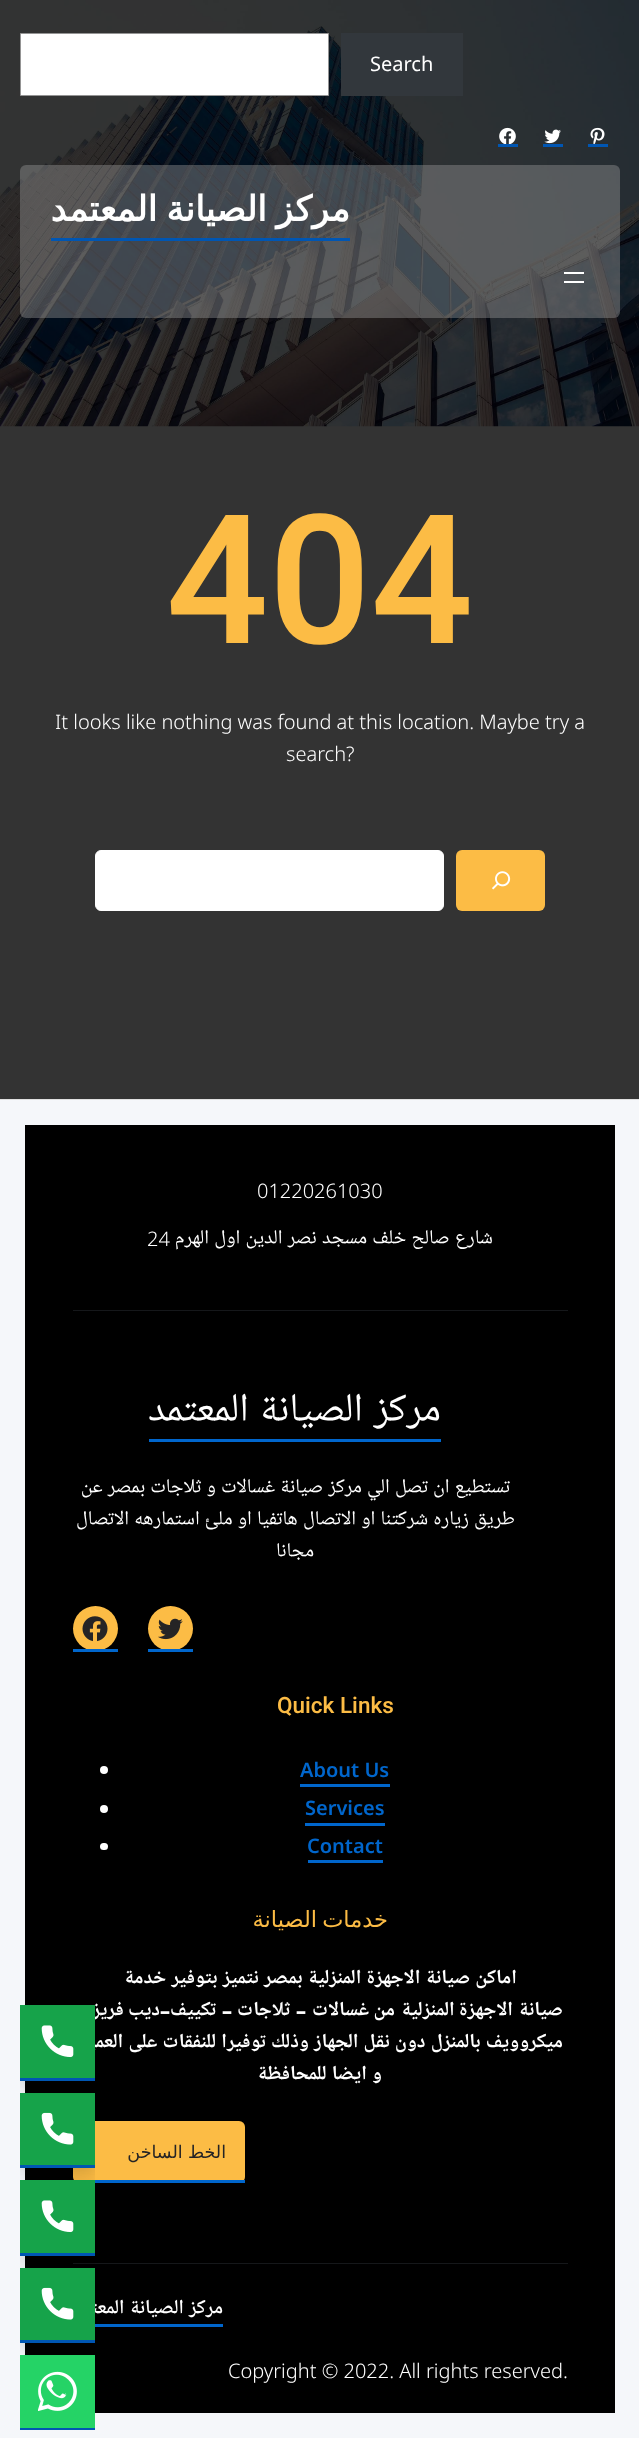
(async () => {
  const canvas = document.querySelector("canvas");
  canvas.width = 639;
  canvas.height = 2450;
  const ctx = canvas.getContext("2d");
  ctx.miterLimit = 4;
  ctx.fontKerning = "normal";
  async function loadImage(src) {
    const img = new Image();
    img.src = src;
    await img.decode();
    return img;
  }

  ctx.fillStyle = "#ffffff";
  ctx.fillRect(0, 0, 639, 2450);
  ctx.fillStyle = "#333333";
  ctx.fillRect(0, 426, 639, 673);
  ctx.drawImage(await loadImage("img/1.png"), 0, 0, 639, 427);
  ctx.fillStyle = "#32373c";
  ctx.fillRect(341, 33, 122, 63);
  ctx.fillStyle = "#ffffff";
  ctx.beginPath();
  ctx.rect(20.5, 33.5, 308, 62);
  ctx.fill();
  ctx.strokeStyle = "#949494";
  ctx.stroke();
  ctx.drawImage(await loadImage("img/2.png"), 590, 127, 15, 17);
  ctx.fillStyle = "#0056b3";
  ctx.fillRect(588, 144, 20, 3);
  ctx.drawImage(await loadImage("img/3.png"), 544, 129, 17, 15);
  ctx.fillRect(543, 144, 20, 3);
  ctx.drawImage(await loadImage("img/4.png"), 499, 127, 17, 17);
  ctx.fillRect(498, 144, 20, 3);
  ctx.fillStyle = "rgba(148, 148, 148, 0.43)";
  ctx.beginPath();
  ctx.roundRect(20, 165, 600, 153, 6);
  ctx.fill();
  for (const [x, y, w, h, color] of [
    [51, 238, 299, 3, "#0056b3"],
    [564, 272, 20, 2, "#ffffff"],
    [564, 281, 20, 2, "#ffffff"],
  ]) {
    ctx.fillStyle = color;
    ctx.fillRect(x, y, w, h);
  }
  ctx.fillStyle = "#fcbc45";
  ctx.beginPath();
  ctx.roundRect(456, 850, 89, 61, 6);
  ctx.fill();
  ctx.drawImage(await loadImage("img/5.png"), 492, 871, 19, 19);
  ctx.fillStyle = "#ffffff";
  ctx.beginPath();
  ctx.roundRect(95.5, 850.5, 348, 60, 5.5);
  ctx.fill();
  ctx.strokeStyle = "#ffffff";
  ctx.stroke();
  for (const [x, y, w, h, color] of [
    [0, 1100, 639, 1338, "#f5f7fa"],
    [0, 1099, 639, 1, "#e0e0e0"],
    [25, 1125, 590, 1288, "#000000"],
    [73, 1310, 495, 1, "#15171a"],
    [149, 1439, 292, 3, "#0066cc"],
  ]) {
    ctx.fillStyle = color;
    ctx.fillRect(x, y, w, h);
  }
  ctx.fillStyle = "#fcbc45";
  ctx.beginPath();
  ctx.arc(170.5, 1628.5, 22.5, 0, Math.PI * 2);
  ctx.fill();
  ctx.drawImage(await loadImage("img/6.png"), 158, 1618, 25, 22);
  ctx.fillStyle = "#0066cc";
  ctx.fillRect(148, 1649, 45, 3);
  ctx.fillStyle = "#fcbc45";
  ctx.beginPath();
  ctx.arc(95.5, 1628.5, 22.5, 0, Math.PI * 2);
  ctx.fill();
  ctx.drawImage(await loadImage("img/7.png"), 82, 1616, 26, 26);
  ctx.fillStyle = "#0066cc";
  ctx.fillRect(73, 1649, 45, 3);
  ctx.fillRect(300, 1784, 90, 3);
  ctx.fillStyle = "#ffffff";
  ctx.beginPath();
  ctx.arc(104, 1770, 4, 0, Math.PI * 2);
  ctx.fill();
  ctx.fillStyle = "#0066cc";
  ctx.fillRect(305, 1823, 80, 3);
  ctx.fillStyle = "#ffffff";
  ctx.beginPath();
  ctx.arc(104, 1809, 4, 0, Math.PI * 2);
  ctx.fill();
  ctx.fillStyle = "#0066cc";
  ctx.fillRect(308, 1860, 75, 3);
  ctx.fillStyle = "#ffffff";
  ctx.beginPath();
  ctx.roundRect(100, 1843, 8, 7, 3.5);
  ctx.fill();
  ctx.fillStyle = "#fcbc45";
  ctx.beginPath();
  ctx.roundRect(73, 2121, 172, 62, 6);
  ctx.fill();
  for (const [x, y, w, h, color] of [
    [95, 2180, 150, 3, "#0066cc"],
    [73, 2263, 495, 1, "#15171a"],
    [95, 2324, 128, 3, "#0066cc"],
  ]) {
    ctx.fillStyle = color;
    ctx.fillRect(x, y, w, h);
  }
  ctx.save();
  ctx.beginPath();
  ctx.rect(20, 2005, 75, 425);
  ctx.clip();
  ctx.fillStyle = "rgba(0, 0, 0, 0.15)";
  ctx.filter = "blur(7.5px)";
  ctx.beginPath();
  ctx.rect(20, 2013, 75, 75);
  ctx.fill();
  ctx.filter = "none";
  ctx.restore();
  ctx.fillStyle = "#0056b3";
  ctx.fillRect(20, 2078, 75, 3);
  ctx.fillRect(20, 2428, 75, 2);
  ctx.font = "20px Noto Sans";
  ctx.fillStyle = "#ffffff";
  ctx.fillText("Search", 370, 71);
  ctx.wordSpacing = "-2px";
  ctx.direction = "rtl";
  ctx.font = "bold 35px DejaVu Sans";
  ctx.fillText("مركز الصيانة المعتمد", 350, 221);
  ctx.wordSpacing = "0px";
  ctx.direction = "ltr";
  ctx.font = "500 180px Heebo";
  ctx.fillStyle = "#fcbc45";
  ctx.fillText("404", 166, 643);
  ctx.font = "300 20px Noto Sans";
  ctx.fillStyle = "#ffffff";
  for (const [text, x, y] of [
    ["It looks like nothing was found at this location. Maybe try a", 55, 729],
    ["search?", 286, 761],
    ["01220261030", 257, 1198],
  ]) {
    ctx.fillText(text, x, y);
  }
  ctx.wordSpacing = "0.75px";
  ctx.direction = "rtl";
  ctx.font = "20px Noto Naskh Arabic UI";
  ctx.fillText("شارع صالح خلف مسجد نصر الدين اول الهرم", 493, 1246);
  ctx.wordSpacing = "0px";
  ctx.direction = "ltr";
  ctx.font = "300 20px Noto Sans";
  ctx.fillText("24", 147, 1246);
  ctx.wordSpacing = "2px";
  ctx.direction = "rtl";
  ctx.font = "40px Noto Naskh Arabic UI";
  ctx.fillText("مركز الصيانة المعتمد", 441, 1426);
  ctx.wordSpacing = "0.75px";
  ctx.font = "20px Noto Naskh Arabic UI";
  ctx.fillText("تستطيع ان تصل الي مركز صيانة غسالات و ثلاجات بمصر عن", 510, 1495);
  ctx.fillText("طريق زياره شركتنا او الاتصال هاتفيا او ملئ استمارهه الاتصال", 515, 1527);
  ctx.wordSpacing = "0px";
  ctx.fillText("مجانا", 314, 1559);
  ctx.direction = "ltr";
  ctx.font = "500 22.5px Heebo";
  ctx.fillStyle = "#fcbc45";
  ctx.fillText("Quick Links", 277, 1713);
  ctx.font = "600 20px Noto Sans";
  ctx.fillStyle = "#0066cc";
  for (const [text, x, y] of [
    ["About Us", 300, 1777],
    ["Services", 305, 1815],
    ["Contact", 307, 1853],
  ]) {
    ctx.fillText(text, x, y);
  }
  ctx.wordSpacing = "-2px";
  ctx.direction = "rtl";
  ctx.font = "22.5px DejaVu Sans";
  ctx.fillStyle = "#fcbc45";
  ctx.fillText("خدمات الصيانة", 388, 1927);
  ctx.wordSpacing = "0.75px";
  ctx.font = "bold 20px Noto Naskh Arabic UI";
  ctx.fillStyle = "#ffffff";
  ctx.fillText("اماكن صيانة الاجهزة المنزلية بمصر نتميز بتوفير خدمة", 517, 1986);
  ctx.wordSpacing = "0px";
  for (const [text, x, y] of [
    ["صيانة", 563, 2018],
    ["الاجهزة المنزلية", 513, 2018],
    ["من غسالات", 395, 2018],
  ]) {
    ctx.fillText(text, x, y);
  }
  ctx.font = "900 20px Noto Sans";
  ctx.fillText("–", 306, 2018);
  ctx.font = "bold 20px Noto Naskh Arabic UI";
  ctx.fillText("ثلاجات", 290, 2018);
  ctx.font = "900 20px Noto Sans";
  ctx.fillText("–", 232, 2018);
  ctx.font = "bold 20px Noto Naskh Arabic UI";
  ctx.fillText("تكييف", 216, 2018);
  ctx.font = "900 20px Noto Sans";
  ctx.fillText("–", 170, 2018);
  ctx.font = "bold 20px Noto Naskh Arabic UI";
  ctx.fillText("ديب فريزر", 160, 2018);
  ctx.wordSpacing = "0.75px";
  ctx.fillText("ميكروويف بالمنزل دون نقل الجهاز وذلك توفيرا للنفقات على العميل", 563, 2050);
  ctx.fillText("و ايضا للمحافظة", 382, 2082);
  ctx.letterSpacing = "1.75px";
  ctx.wordSpacing = "-2px";
  ctx.font = "17.5px DejaVu Sans";
  ctx.fillStyle = "#252425";
  ctx.fillText("الخط الساخن", 226, 2158);
  ctx.letterSpacing = "0px";
  ctx.wordSpacing = "0.75px";
  ctx.font = "600 20px Noto Naskh Arabic UI";
  ctx.fillStyle = "#ffffff";
  ctx.fillText("مركز الصيانة المعتمد", 223, 2316);
  ctx.wordSpacing = "0px";
  ctx.direction = "ltr";
  ctx.font = "300 20px Noto Sans";
  ctx.fillText("Copyright © 2022. All rights reserved.", 228, 2378);
  ctx.fillStyle = "#16a34a";
  ctx.fillRect(20, 2005, 75, 73);
  ctx.drawImage(await loadImage("img/8.png"), 41, 2025, 33, 33);
  ctx.save();
  ctx.beginPath();
  ctx.rect(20, 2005, 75, 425);
  ctx.clip();
  ctx.fillStyle = "rgba(0, 0, 0, 0.15)";
  ctx.filter = "blur(7.5px)";
  ctx.beginPath();
  ctx.rect(20, 2100, 75, 75);
  ctx.fill();
  ctx.filter = "none";
  ctx.restore();
  ctx.fillRect(20, 2093, 75, 72);
  ctx.drawImage(await loadImage("img/9.png"), 41, 2112, 33, 33);
  ctx.fillStyle = "#0056b3";
  ctx.fillRect(20, 2165, 75, 3);
  ctx.save();
  ctx.beginPath();
  ctx.rect(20, 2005, 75, 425);
  ctx.clip();
  ctx.fillStyle = "rgba(0, 0, 0, 0.15)";
  ctx.filter = "blur(7.5px)";
  ctx.beginPath();
  ctx.rect(20, 2188, 75, 75);
  ctx.fill();
  ctx.filter = "none";
  ctx.restore();
  ctx.fillStyle = "#16a34a";
  ctx.fillRect(20, 2180, 75, 73);
  ctx.drawImage(await loadImage("img/8.png"), 41, 2200, 33, 33);
  ctx.fillStyle = "#0056b3";
  ctx.fillRect(20, 2253, 75, 3);
  ctx.save();
  ctx.beginPath();
  ctx.rect(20, 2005, 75, 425);
  ctx.clip();
  ctx.fillStyle = "rgba(0, 0, 0, 0.15)";
  ctx.filter = "blur(7.5px)";
  ctx.beginPath();
  ctx.rect(20, 2275, 75, 75);
  ctx.fill();
  ctx.filter = "none";
  ctx.restore();
  ctx.fillStyle = "#16a34a";
  ctx.fillRect(20, 2268, 75, 72);
  ctx.drawImage(await loadImage("img/9.png"), 41, 2287, 33, 33);
  ctx.fillStyle = "#0056b3";
  ctx.fillRect(20, 2340, 75, 3);
  ctx.fillStyle = "#25d366";
  ctx.fillRect(20, 2355, 75, 73);
  ctx.drawImage(await loadImage("img/10.png"), 38, 2371, 39, 40);
})();
